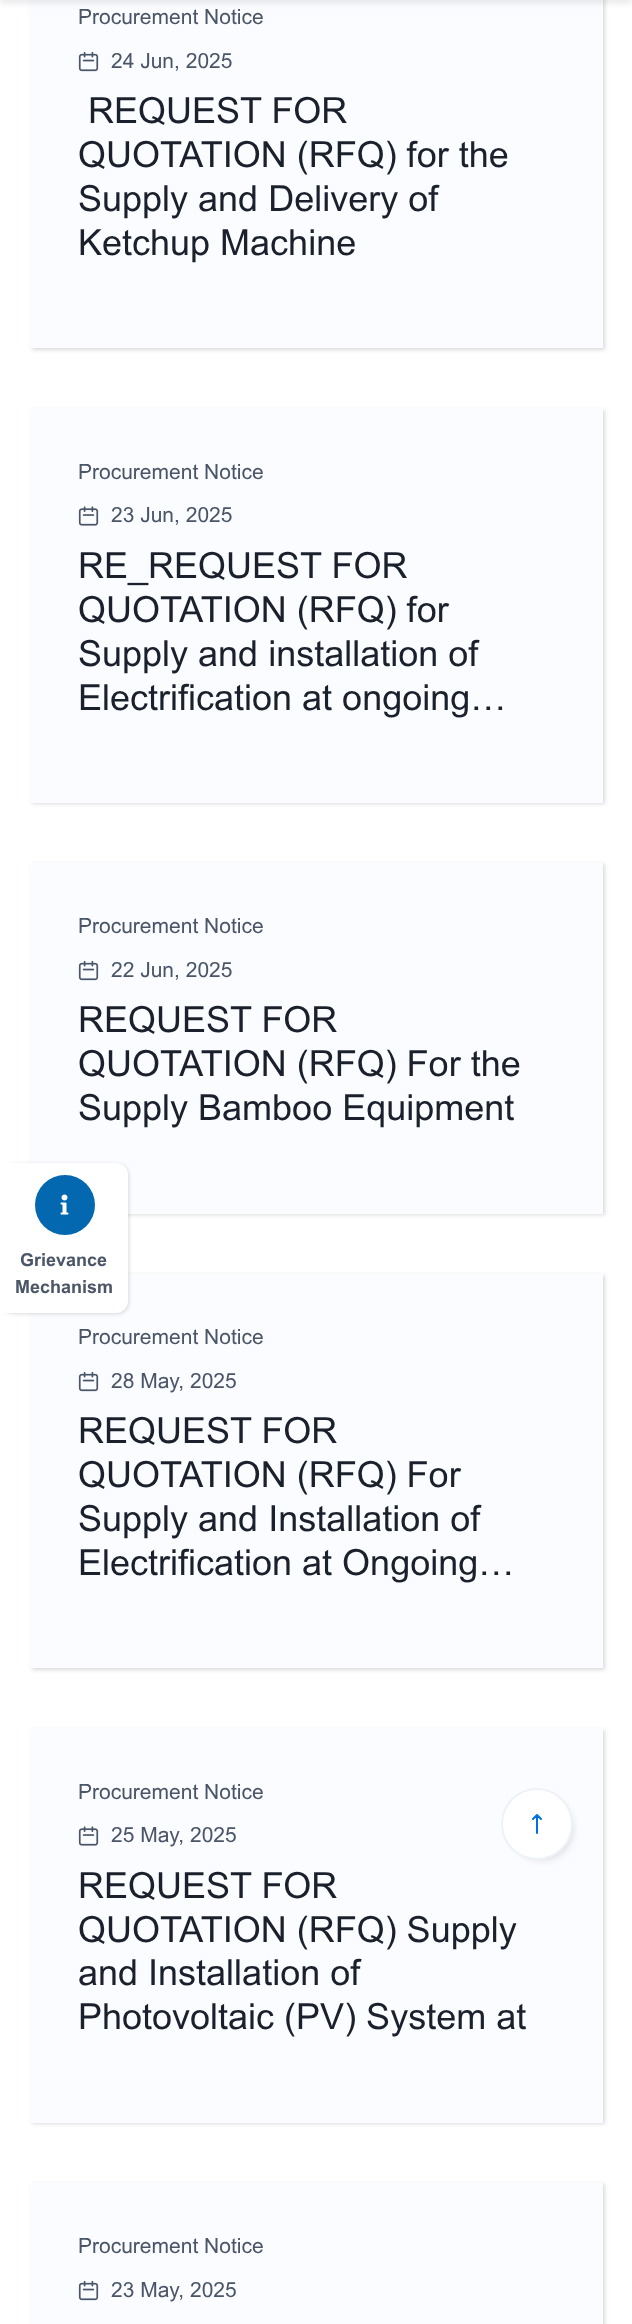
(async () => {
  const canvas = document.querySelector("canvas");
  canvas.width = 632;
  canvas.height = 2324;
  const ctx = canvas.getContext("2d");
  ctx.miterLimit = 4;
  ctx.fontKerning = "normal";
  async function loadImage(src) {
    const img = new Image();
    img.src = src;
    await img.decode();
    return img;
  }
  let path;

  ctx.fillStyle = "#ffffff";
  ctx.fillRect(0, 0, 632, 2324);
  ctx.fillStyle = "rgba(26, 32, 44, 0.1)";
  ctx.filter = "blur(2px)";
  ctx.beginPath();
  ctx.rect(32, -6, 573, 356);
  ctx.fill();
  ctx.filter = "none";
  ctx.fillStyle = "rgba(26, 32, 44, 0.06)";
  ctx.filter = "blur(1.5px)";
  ctx.beginPath();
  ctx.rect(32, -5, 573, 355);
  ctx.fill();
  ctx.filter = "none";
  ctx.fillStyle = "#fafcff";
  ctx.fillRect(30, 0, 573, 348);
  ctx.fillStyle = "rgba(125, 125, 125, 0.18)";
  ctx.filter = "blur(3px)";
  ctx.beginPath();
  ctx.rect(0, -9, 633, 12);
  ctx.fill();
  ctx.filter = "none";
  ctx.fillStyle = "rgba(26, 32, 44, 0.1)";
  ctx.filter = "blur(2px)";
  ctx.beginPath();
  ctx.rect(32, 864, 573, 351);
  ctx.fill();
  ctx.filter = "none";
  ctx.fillStyle = "rgba(26, 32, 44, 0.06)";
  ctx.filter = "blur(1.5px)";
  ctx.beginPath();
  ctx.rect(32, 864, 573, 351);
  ctx.fill();
  ctx.filter = "none";
  ctx.fillStyle = "#fafcff";
  ctx.fillRect(30, 863, 573, 351);
  ctx.fillStyle = "rgba(26, 32, 44, 0.1)";
  ctx.filter = "blur(2px)";
  ctx.beginPath();
  ctx.rect(32, 1275, 573, 395);
  ctx.fill();
  ctx.filter = "none";
  ctx.fillStyle = "rgba(26, 32, 44, 0.06)";
  ctx.filter = "blur(1.5px)";
  ctx.beginPath();
  ctx.rect(32, 1275, 573, 395);
  ctx.fill();
  ctx.filter = "none";
  ctx.fillStyle = "#fafcff";
  ctx.fillRect(30, 1274, 573, 394);
  ctx.fillStyle = "rgba(26, 32, 44, 0.1)";
  ctx.filter = "blur(2px)";
  ctx.beginPath();
  ctx.roundRect(2, 1164, 127, 150, 12);
  ctx.fill();
  ctx.filter = "none";
  ctx.fillStyle = "rgba(26, 32, 44, 0.06)";
  ctx.filter = "blur(1.5px)";
  ctx.beginPath();
  ctx.roundRect(2, 1164, 127, 150, 12);
  ctx.fill();
  ctx.filter = "none";
  ctx.fillStyle = "#ffffff";
  ctx.beginPath();
  ctx.roundRect(0, 1163, 128, 150, [0, 12, 12, 0]);
  ctx.fill();
  ctx.fillStyle = "#0468b1";
  ctx.beginPath();
  ctx.arc(65, 1205, 30, 0, Math.PI * 2);
  ctx.fill();
  ctx.drawImage(await loadImage("img/1.png"), 60, 1194, 9, 21);
  ctx.drawImage(await loadImage("img/2.png"), 78, 51, 21, 21);
  ctx.fillStyle = "rgba(26, 32, 44, 0.1)";
  ctx.filter = "blur(2px)";
  ctx.beginPath();
  ctx.rect(32, 410, 573, 394);
  ctx.fill();
  ctx.filter = "none";
  ctx.fillStyle = "rgba(26, 32, 44, 0.06)";
  ctx.filter = "blur(1.5px)";
  ctx.beginPath();
  ctx.rect(32, 410, 573, 394);
  ctx.fill();
  ctx.filter = "none";
  ctx.fillStyle = "#fafcff";
  ctx.fillRect(30, 408, 573, 395);
  ctx.drawImage(await loadImage("img/3.png"), 78, 506, 21, 20);
  ctx.drawImage(await loadImage("img/2.png"), 78, 960, 21, 21);
  ctx.drawImage(await loadImage("img/2.png"), 78, 1371, 21, 21);
  ctx.fillStyle = "rgba(26, 32, 44, 0.1)";
  ctx.filter = "blur(2px)";
  ctx.beginPath();
  ctx.rect(32, 1730, 573, 394);
  ctx.fill();
  ctx.filter = "none";
  ctx.fillStyle = "rgba(26, 32, 44, 0.06)";
  ctx.filter = "blur(1.5px)";
  ctx.beginPath();
  ctx.rect(32, 1730, 573, 394);
  ctx.fill();
  ctx.filter = "none";
  ctx.fillStyle = "#fafcff";
  ctx.fillRect(30, 1728, 573, 395);
  ctx.drawImage(await loadImage("img/3.png"), 78, 1826, 21, 20);
  ctx.fillStyle = "rgba(26, 32, 44, 0.1)";
  ctx.filter = "blur(2px)";
  ctx.beginPath();
  ctx.rect(32, 2184, 573, 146);
  ctx.fill();
  ctx.filter = "none";
  ctx.fillStyle = "rgba(26, 32, 44, 0.06)";
  ctx.filter = "blur(1.5px)";
  ctx.beginPath();
  ctx.rect(32, 2184, 573, 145);
  ctx.fill();
  ctx.filter = "none";
  ctx.fillStyle = "#fafcff";
  ctx.fillRect(30, 2183, 573, 141);
  ctx.drawImage(await loadImage("img/2.png"), 78, 2280, 21, 21);
  ctx.fillStyle = "rgba(26, 32, 44, 0.1)";
  ctx.filter = "blur(4.5px)";
  ctx.beginPath();
  ctx.roundRect(513, 1800, 60, 60, 30);
  ctx.fill();
  ctx.filter = "none";
  ctx.fillStyle = "rgba(26, 32, 44, 0.06)";
  ctx.filter = "blur(3px)";
  ctx.beginPath();
  ctx.roundRect(509, 1796, 63, 63, 31.5);
  ctx.fill();
  ctx.filter = "none";
  ctx.fillStyle = "#ffffff";
  ctx.beginPath();
  ctx.arc(537, 1824, 35, 0, Math.PI * 2);
  ctx.fill();
  ctx.strokeStyle = "#edf2f7";
  ctx.lineWidth = 2;
  ctx.stroke();
  path = new Path2D("M537 1815V1833M533 1819L537 1815ZM537 1815L541 1819Z");
  ctx.strokeStyle = "#0070e0";
  ctx.lineCap = "round";
  ctx.lineJoin = "round";
  ctx.stroke(path);
  ctx.font = "bold 18px Arial";
  ctx.fillStyle = "#4a5568";
  ctx.fillText("Grievance", 20, 1266);
  ctx.fillText("Mechanism", 15, 1293);
  ctx.font = "21px Arial";
  ctx.fillText("Procurement Notice", 78, 24);
  ctx.fillText("24 Jun, 2025", 111, 68);
  ctx.font = "36px Arial";
  ctx.fillStyle = "#1a202c";
  for (const [text, x, y] of [
    ["REQUEST FOR", 88, 123],
    ["QUOTATION (RFQ) for the", 78, 167],
    ["Supply and Delivery of", 78, 211],
    ["Ketchup Machine", 78, 255],
  ]) {
    ctx.fillText(text, x, y);
  }
  ctx.font = "21px Arial";
  ctx.fillStyle = "#4a5568";
  ctx.fillText("Procurement Notice", 78, 479);
  ctx.fillText("23 Jun, 2025", 111, 522);
  ctx.font = "36px Arial";
  ctx.fillStyle = "#1a202c";
  for (const [text, x, y] of [
    ["RE_REQUEST FOR", 78, 578],
    ["QUOTATION (RFQ) for", 78, 622],
    ["Supply and installation of", 78, 666],
    ["Electrification at ongoing…", 78, 710],
  ]) {
    ctx.fillText(text, x, y);
  }
  ctx.font = "21px Arial";
  ctx.fillStyle = "#4a5568";
  ctx.fillText("Procurement Notice", 78, 933);
  ctx.fillText("22 Jun, 2025", 111, 977);
  ctx.font = "36px Arial";
  ctx.fillStyle = "#1a202c";
  for (const [text, x, y] of [
    ["REQUEST FOR", 78, 1032],
    ["QUOTATION (RFQ) For the", 78, 1076],
    ["Supply Bamboo Equipment", 78, 1120],
  ]) {
    ctx.fillText(text, x, y);
  }
  ctx.font = "21px Arial";
  ctx.fillStyle = "#4a5568";
  ctx.fillText("Procurement Notice", 78, 1344);
  ctx.fillText("28 May, 2025", 111, 1388);
  ctx.font = "36px Arial";
  ctx.fillStyle = "#1a202c";
  for (const [text, x, y] of [
    ["REQUEST FOR", 78, 1443],
    ["QUOTATION (RFQ) For", 78, 1487],
    ["Supply and Installation of", 78, 1531],
    ["Electrification at Ongoing…", 78, 1575],
  ]) {
    ctx.fillText(text, x, y);
  }
  ctx.font = "21px Arial";
  ctx.fillStyle = "#4a5568";
  ctx.fillText("Procurement Notice", 78, 1799);
  ctx.fillText("25 May, 2025", 111, 1842);
  ctx.font = "36px Arial";
  ctx.fillStyle = "#1a202c";
  for (const [text, x, y] of [
    ["REQUEST FOR", 78, 1898],
    ["QUOTATION (RFQ) Supply", 78, 1942],
    ["and Installation of", 78, 1985],
    ["Photovoltaic (PV) System at", 78, 2029],
  ]) {
    ctx.fillText(text, x, y);
  }
  ctx.font = "21px Arial";
  ctx.fillStyle = "#4a5568";
  ctx.fillText("Procurement Notice", 78, 2253);
  ctx.fillText("23 May, 2025", 111, 2297);
})();
